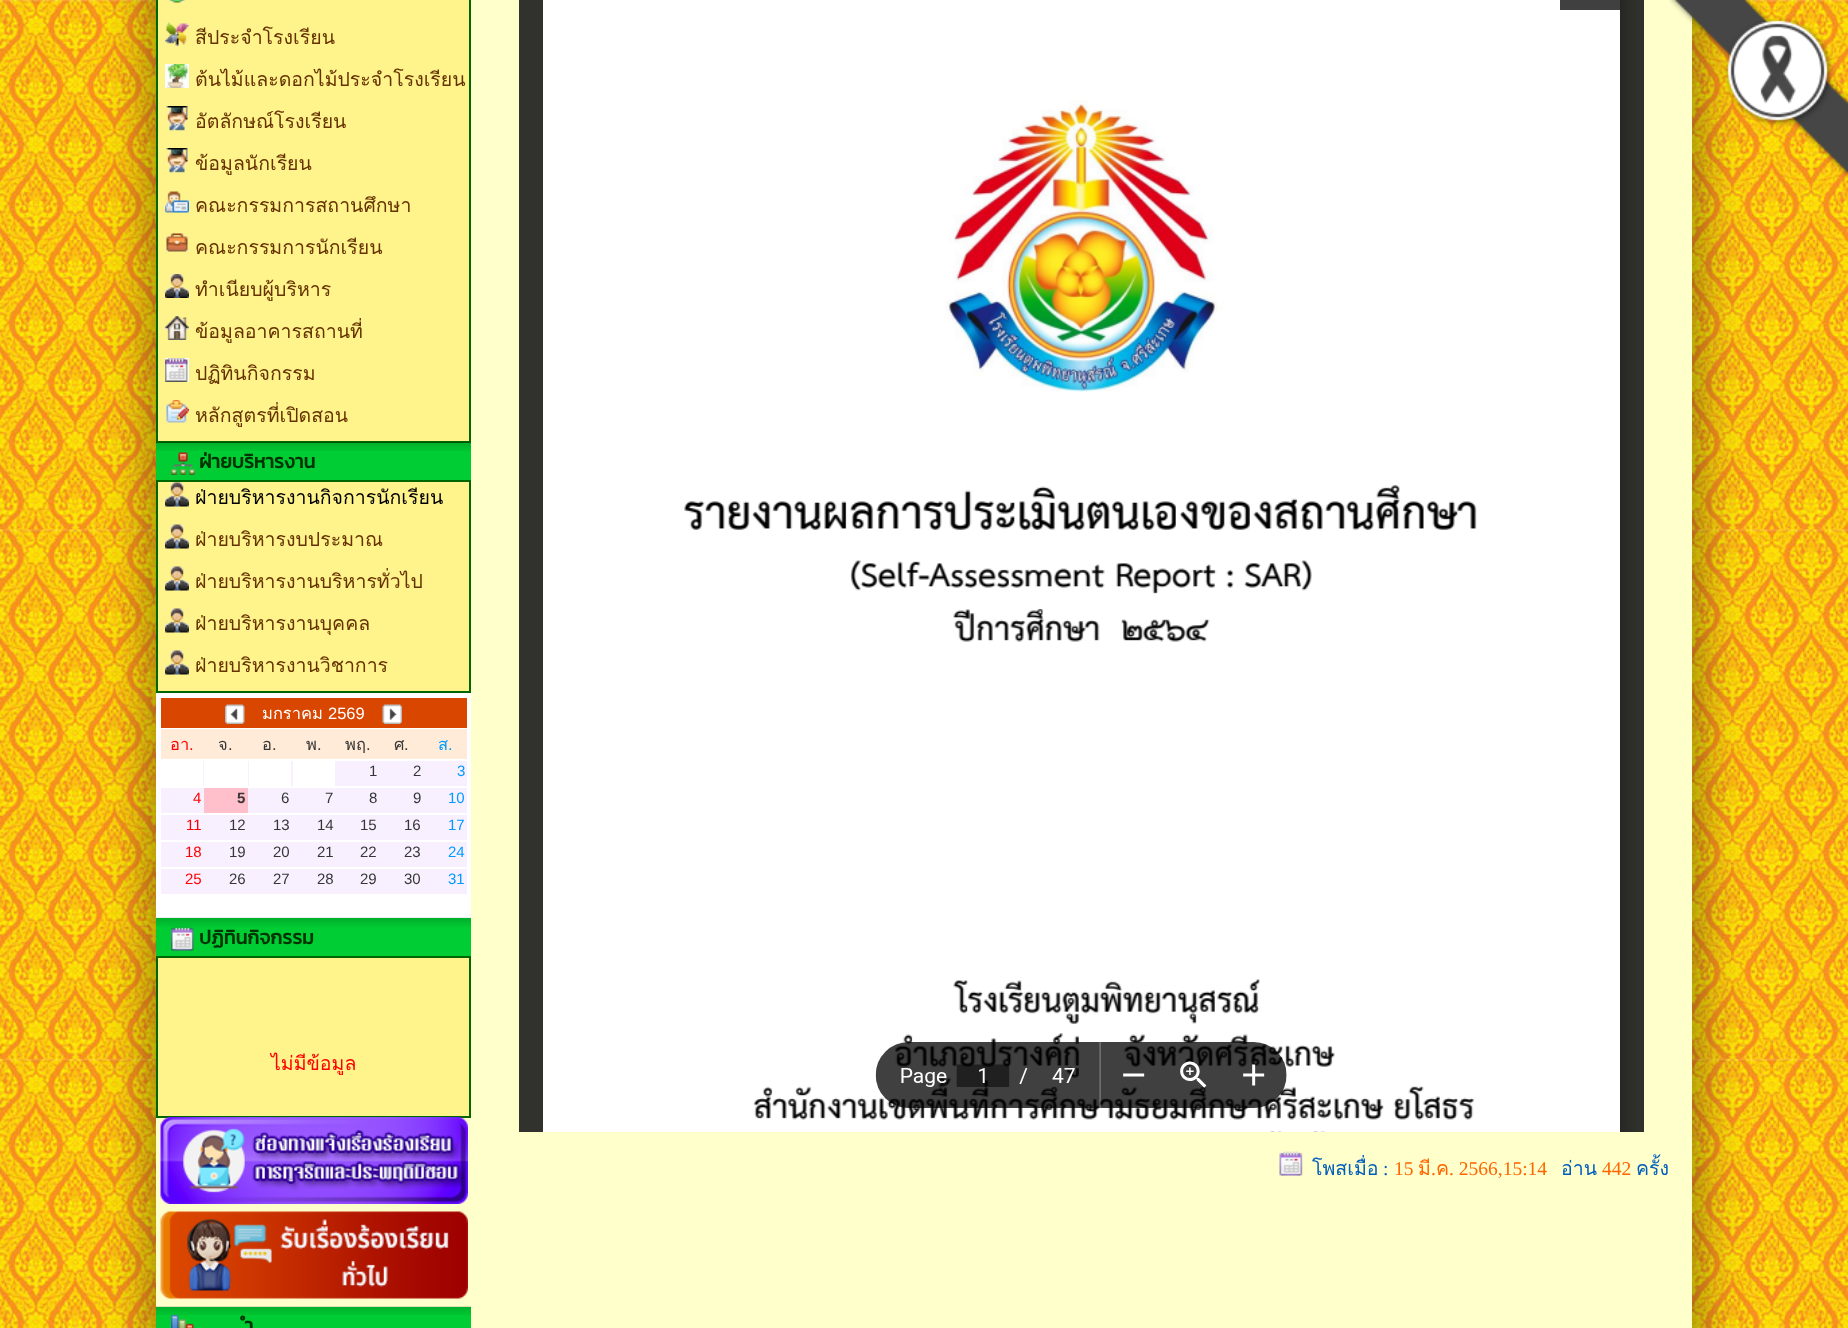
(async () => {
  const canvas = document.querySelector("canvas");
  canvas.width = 1848;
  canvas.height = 1328;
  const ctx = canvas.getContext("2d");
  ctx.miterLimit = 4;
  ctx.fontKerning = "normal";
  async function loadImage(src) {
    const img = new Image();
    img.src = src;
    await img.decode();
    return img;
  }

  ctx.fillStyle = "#ffffff";
  ctx.fillRect(0, 0, 1848, 1328);
  ctx.drawImage(await loadImage("img/1.png"), 0, 0, 1848, 1328);
  ctx.fillStyle = "rgba(0, 0, 0, 0.39)";
  ctx.filter = "blur(22.5px)";
  ctx.beginPath();
  ctx.rect(149, -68, 1551, 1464);
  ctx.fill();
  ctx.filter = "none";
  ctx.fillStyle = "#ffffcc";
  ctx.fillRect(156, 1118, 315, 189);
  ctx.fillStyle = "#fff38c";
  ctx.beginPath();
  ctx.rect(157, -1, 313, 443);
  ctx.fill();
  ctx.strokeStyle = "#006600";
  ctx.lineWidth = 2;
  ctx.stroke();
  ctx.drawImage(await loadImage("img/2.png"), 169, 0, 16, 3);
  ctx.drawImage(await loadImage("img/3.png"), 165, 22, 24, 24);
  ctx.drawImage(await loadImage("img/4.png"), 165, 64, 24, 24);
  ctx.drawImage(await loadImage("img/5.png"), 166, 106, 22, 25);
  ctx.drawImage(await loadImage("img/5.png"), 166, 148, 22, 25);
  ctx.drawImage(await loadImage("img/6.png"), 165, 191, 24, 22);
  ctx.drawImage(await loadImage("img/7.png"), 166, 233, 22, 19);
  ctx.drawImage(await loadImage("img/8.png"), 165, 274, 24, 24);
  ctx.drawImage(await loadImage("img/9.png"), 165, 316, 24, 24);
  ctx.drawImage(await loadImage("img/10.png"), 165, 358, 24, 24);
  ctx.drawImage(await loadImage("img/11.png"), 166, 400, 23, 23);
  ctx.fillStyle = "#00cc33";
  ctx.fillRect(156, 443, 315, 37);
  ctx.drawImage(await loadImage("img/12.png"), 156, 442, 315, 9);
  ctx.drawImage(await loadImage("img/13.png"), 171, 452, 24, 23);
  ctx.fillStyle = "#fff38c";
  ctx.beginPath();
  ctx.rect(157, 481, 313, 211);
  ctx.fill();
  ctx.stroke();
  ctx.drawImage(await loadImage("img/14.png"), 165, 482, 24, 25);
  ctx.drawImage(await loadImage("img/14.png"), 165, 524, 24, 25);
  ctx.drawImage(await loadImage("img/14.png"), 165, 566, 24, 25);
  ctx.drawImage(await loadImage("img/14.png"), 165, 608, 24, 25);
  ctx.drawImage(await loadImage("img/14.png"), 165, 650, 24, 25);
  ctx.fillStyle = "#ffffff";
  ctx.fillRect(156, 693, 315, 225);
  ctx.fillStyle = "#d94600";
  ctx.fillRect(161, 698, 306, 30);
  ctx.drawImage(await loadImage("img/15.png"), 225, 704, 20, 20);
  ctx.drawImage(await loadImage("img/16.png"), 382, 704, 20, 20);
  for (const [x, y, w, h, color] of [
    [161, 729, 306, 30, "#ffebd7"],
    [203, 761, 264, 25, "#f8f0ff"],
    [204, 761, 44, 25, "#ffffff"],
    [249, 761, 42, 25, "#ffffff"],
    [293, 761, 42, 25, "#ffffff"],
    [161, 788, 306, 25, "#f8f0ff"],
    [204, 788, 44, 25, "#ffc0cb"],
    [161, 815, 306, 25, "#f8f0ff"],
    [161, 842, 306, 25, "#f8f0ff"],
    [161, 869, 306, 25, "#f8f0ff"],
    [156, 918, 315, 38, "#00cc33"],
  ]) {
    ctx.fillStyle = color;
    ctx.fillRect(x, y, w, h);
  }
  ctx.drawImage(await loadImage("img/17.png"), 156, 917, 315, 10);
  ctx.drawImage(await loadImage("img/18.png"), 171, 926, 23, 25);
  ctx.fillStyle = "#fff38c";
  ctx.beginPath();
  ctx.rect(157, 957, 313, 160);
  ctx.fill();
  ctx.stroke();
  ctx.drawImage(await loadImage("img/19.png"), 160, 1117, 308, 87);
  ctx.drawImage(await loadImage("img/20.png"), 160, 1211, 308, 88);
  ctx.fillStyle = "#00cc33";
  ctx.fillRect(156, 1307, 315, 21);
  ctx.drawImage(await loadImage("img/21.png"), 156, 1306, 315, 9);
  ctx.drawImage(await loadImage("img/22.png"), 171, 1315, 23, 13);
  ctx.fillStyle = "#ffffcc";
  ctx.fillRect(471, 0, 1221, 1328);
  ctx.drawImage(await loadImage("img/23.png"), 519, 0, 1125, 1132);
  ctx.drawImage(await loadImage("img/24.png"), 1279, 1151, 24, 25);
  ctx.drawImage(await loadImage("img/25.png"), 1669, 0, 179, 179);
  ctx.font = "19.5px Loma";
  ctx.fillStyle = "#663300";
  for (const [text, x, y] of [
    ["สีประจำโรงเรียน", 195, 44],
    ["ต้นไม้และดอกไม้ประจำโรงเรียน", 195, 86],
    ["อัตลักษณ์โรงเรียน", 195, 128],
    ["ข้อมูลนักเรียน", 195, 170],
    ["คณะกรรมการสถานศึกษา", 195, 212],
    ["คณะกรรมการนักเรียน", 195, 254],
    ["ทำเนียบผู้บริหาร", 195, 296],
    ["ข้อมูลอาคารสถานที่", 195, 338],
    ["ปฏิทินกิจกรรม", 195, 380],
    ["หลักสูตรที่เปิดสอน", 195, 422],
  ]) {
    ctx.fillText(text, x, y);
  }
  ctx.font = "bold 19.5px Kanit";
  ctx.fillStyle = "#003300";
  ctx.fillText("ฝ่ายบริหารงาน", 199, 468);
  ctx.font = "19.5px Loma";
  ctx.fillStyle = "#000000";
  ctx.fillText("ฝ่ายบริหารงานกิจการนักเรียน", 195, 504);
  ctx.fillStyle = "#663300";
  for (const [text, x, y] of [
    ["ฝ่ายบริหารงบประมาณ", 195, 546],
    ["ฝ่ายบริหารงานบริหารทั่วไป", 195, 588],
    ["ฝ่ายบริหารงานบุคคล", 195, 630],
    ["ฝ่ายบริหารงานวิชาการ", 195, 672],
  ]) {
    ctx.fillText(text, x, y);
  }
  ctx.font = "16.5px Loma";
  ctx.fillStyle = "#ffffff";
  ctx.fillText("มกราคม", 262, 719);
  ctx.font = "16.5px Liberation Sans";
  ctx.fillText("2569", 328, 719);
  ctx.font = "16.5px Loma";
  ctx.fillStyle = "#ff0000";
  ctx.fillText("อา", 170, 750);
  ctx.font = "16.5px Liberation Sans";
  ctx.fillText(".", 189, 750);
  ctx.font = "16.5px Loma";
  ctx.fillStyle = "#363636";
  ctx.fillText("จ", 218, 750);
  ctx.font = "16.5px Liberation Sans";
  ctx.fillText(".", 228, 750);
  ctx.font = "16.5px Loma";
  ctx.fillText("อ", 262, 750);
  ctx.font = "16.5px Liberation Sans";
  ctx.fillText(".", 272, 750);
  ctx.font = "16.5px Loma";
  ctx.fillText("พ", 306, 750);
  ctx.font = "16.5px Liberation Sans";
  ctx.fillText(".", 317, 750);
  ctx.font = "16.5px Loma";
  ctx.fillText("พฤ", 345, 750);
  ctx.font = "16.5px Liberation Sans";
  ctx.fillText(".", 366, 750);
  ctx.font = "16.5px Loma";
  ctx.fillText("ศ", 394, 750);
  ctx.font = "16.5px Liberation Sans";
  ctx.fillText(".", 404, 750);
  ctx.font = "16.5px Loma";
  ctx.fillStyle = "#009aff";
  ctx.fillText("ส", 438, 750);
  ctx.font = "16.5px Liberation Sans";
  ctx.fillText(".", 448, 750);
  ctx.font = "15px Liberation Sans";
  ctx.fillStyle = "#363636";
  ctx.fillText("1", 369, 776);
  ctx.fillText("2", 413, 776);
  ctx.fillStyle = "#009aff";
  ctx.fillText("3", 457, 776);
  ctx.fillStyle = "#ff0000";
  ctx.fillText("4", 193, 803);
  ctx.font = "bold 15px Liberation Sans";
  ctx.fillStyle = "#363636";
  ctx.fillText("5", 237, 803);
  ctx.font = "15px Liberation Sans";
  for (const [text, x, y] of [
    ["6", 281, 803],
    ["7", 325, 803],
    ["8", 369, 803],
    ["9", 413, 803],
  ]) {
    ctx.fillText(text, x, y);
  }
  ctx.fillStyle = "#009aff";
  ctx.fillText("10", 448, 803);
  ctx.fillStyle = "#ff0000";
  ctx.fillText("11", 186, 830);
  ctx.fillStyle = "#363636";
  for (const [text, x, y] of [
    ["12", 229, 830],
    ["13", 273, 830],
    ["14", 317, 830],
    ["15", 360, 830],
    ["16", 404, 830],
  ]) {
    ctx.fillText(text, x, y);
  }
  ctx.fillStyle = "#009aff";
  ctx.fillText("17", 448, 830);
  ctx.fillStyle = "#ff0000";
  ctx.fillText("18", 185, 857);
  ctx.fillStyle = "#363636";
  for (const [text, x, y] of [
    ["19", 229, 857],
    ["20", 273, 857],
    ["21", 317, 857],
    ["22", 360, 857],
    ["23", 404, 857],
  ]) {
    ctx.fillText(text, x, y);
  }
  ctx.fillStyle = "#009aff";
  ctx.fillText("24", 448, 857);
  ctx.fillStyle = "#ff0000";
  ctx.fillText("25", 185, 884);
  ctx.fillStyle = "#363636";
  for (const [text, x, y] of [
    ["26", 229, 884],
    ["27", 273, 884],
    ["28", 317, 884],
    ["29", 360, 884],
    ["30", 404, 884],
  ]) {
    ctx.fillText(text, x, y);
  }
  ctx.fillStyle = "#009aff";
  ctx.fillText("31", 448, 884);
  ctx.font = "bold 19.5px Kanit";
  ctx.fillStyle = "#003300";
  ctx.fillText("ปฏิทินกิจกรรม", 199, 944);
  ctx.font = "19.5px Loma";
  ctx.fillStyle = "#ff0000";
  ctx.fillText("ไม่มีข้อมูล", 271, 1070);
  ctx.font = "bold 19.5px Kanit";
  ctx.fillStyle = "#003300";
  ctx.fillText("ำ", 245, 1332);
  ctx.font = "19.5px Loma";
  ctx.fillStyle = "#005ebb";
  ctx.fillText("โพสเมื่อ", 1312, 1175);
  ctx.font = "19.5px Liberation Serif";
  ctx.fillText(":", 1383, 1175);
  ctx.fillStyle = "#ff6600";
  ctx.fillText("15", 1394, 1175);
  ctx.font = "19.5px Loma";
  ctx.fillText("มี", 1418, 1175);
  ctx.font = "19.5px Liberation Serif";
  ctx.fillText(".", 1431, 1175);
  ctx.font = "19.5px Loma";
  ctx.fillText("ค", 1436, 1175);
  ctx.font = "19.5px Liberation Serif";
  ctx.fillText(". 2566,15:14", 1449, 1175);
  ctx.font = "19.5px Loma";
  ctx.fillStyle = "#005ebb";
  ctx.fillText("อ่าน", 1561, 1175);
  ctx.font = "19.5px Liberation Serif";
  ctx.fillStyle = "#ff6600";
  ctx.fillText("442", 1602, 1175);
  ctx.font = "19.5px Loma";
  ctx.fillStyle = "#005ebb";
  ctx.fillText("ครั้ง", 1636, 1175);
})();
